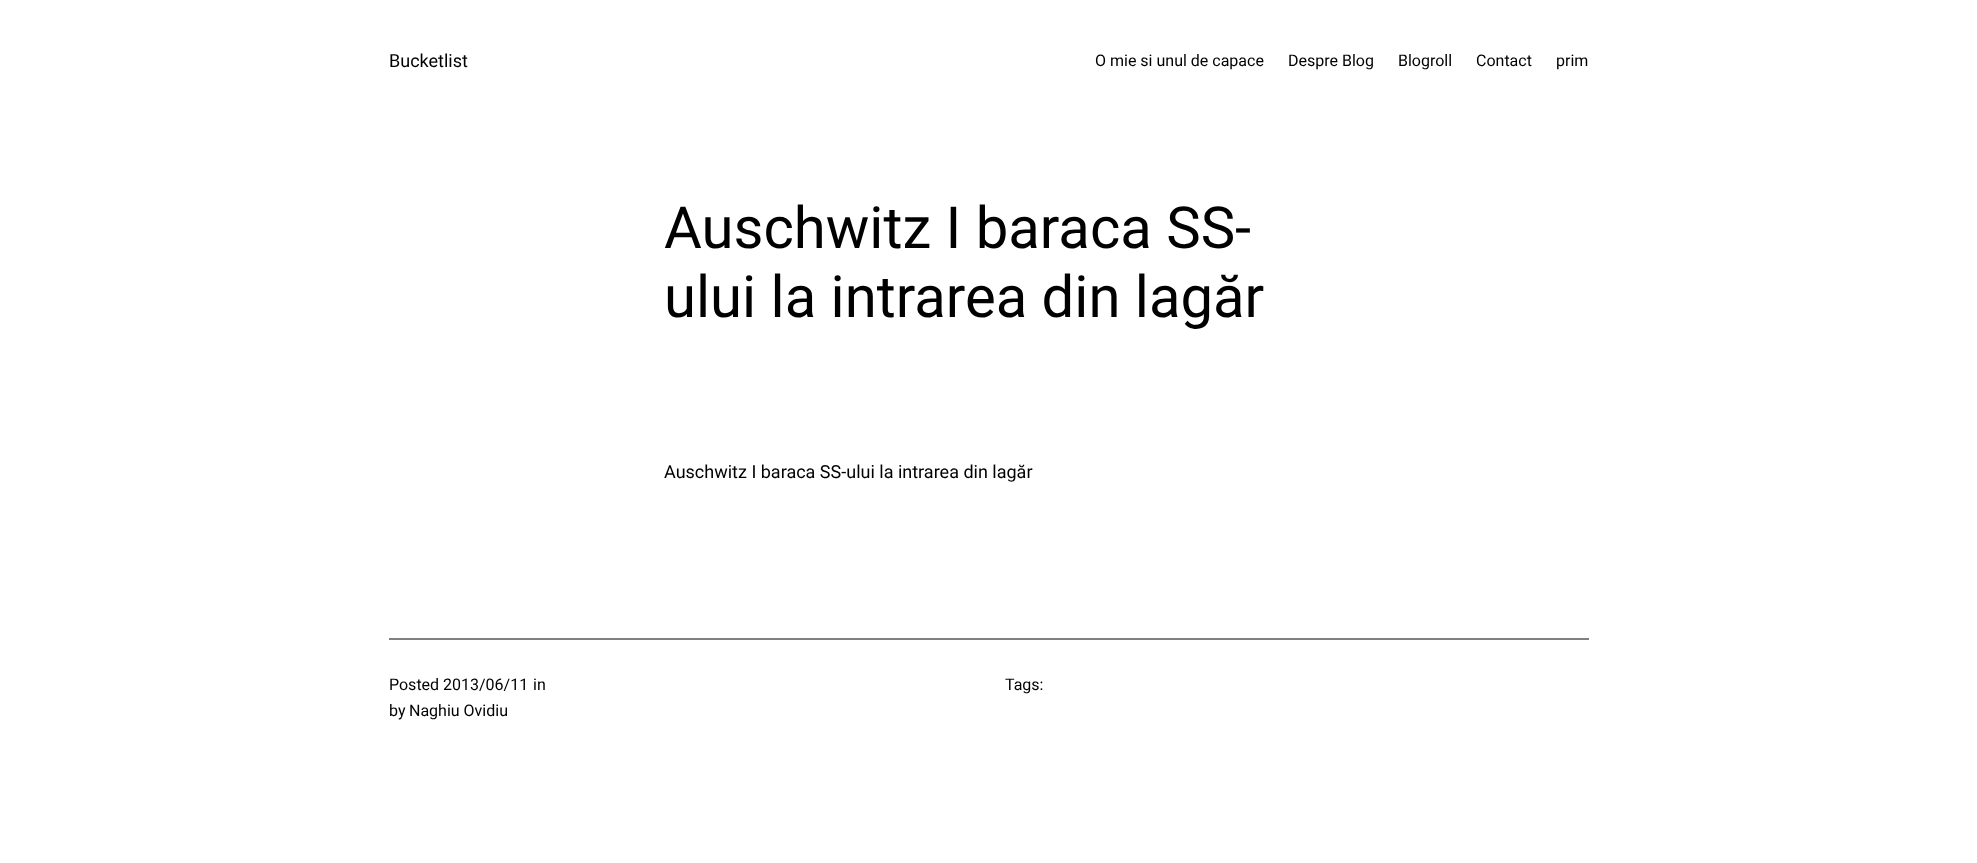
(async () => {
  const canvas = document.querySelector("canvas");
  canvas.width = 1977;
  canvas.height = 863;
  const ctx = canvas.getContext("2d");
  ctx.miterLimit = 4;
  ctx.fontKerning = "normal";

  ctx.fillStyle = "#ffffff";
  ctx.fillRect(0, 0, 1977, 863);
  ctx.fillStyle = "#808080";
  ctx.fillRect(389, 638, 1200, 2);
  ctx.font = "18px Roboto";
  ctx.fillStyle = "#000000";
  ctx.fillText("Bucketlist", 389, 67);
  ctx.font = "16px Roboto";
  for (const [text, x, y] of [
    ["O mie si unul de capace", 1095, 66],
    ["Despre Blog", 1288, 66],
    ["Blogroll", 1398, 66],
    ["Contact", 1476, 66],
    ["prim", 1556, 66],
  ]) {
    ctx.fillText(text, x, y);
  }
  ctx.font = "58px Roboto";
  ctx.fillText("Auschwitz I baraca SS-", 664, 248);
  ctx.fillText("ului la intrarea din lagăr", 664, 317);
  ctx.font = "18px Roboto";
  ctx.fillText("Auschwitz I baraca SS-ului la intrarea din lagăr", 664, 478);
  ctx.font = "16px Roboto";
  for (const [text, x, y] of [
    ["Posted", 389, 690],
    ["2013/06/11", 443, 690],
    ["in", 533, 690],
    ["by", 389, 716],
    ["Naghiu Ovidiu", 409, 716],
    ["Tags:", 1005, 690],
  ]) {
    ctx.fillText(text, x, y);
  }
})();
